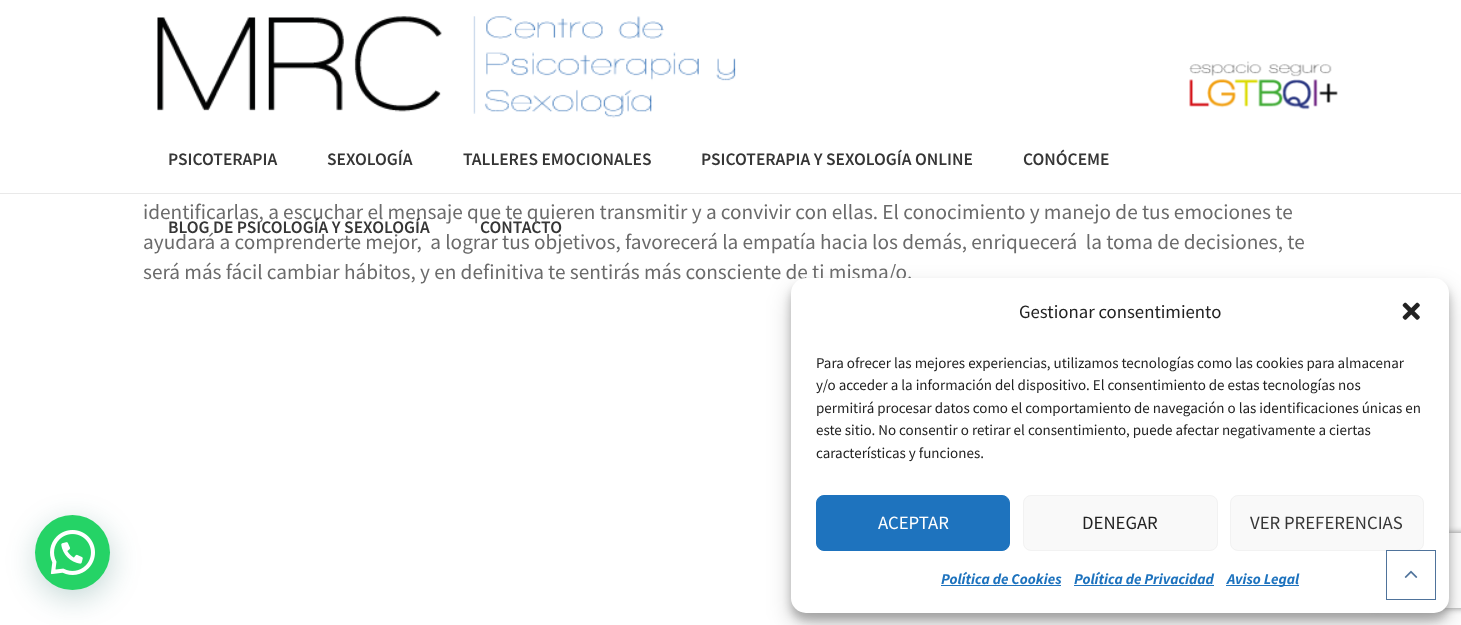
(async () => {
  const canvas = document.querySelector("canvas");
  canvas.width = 1461;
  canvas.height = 625;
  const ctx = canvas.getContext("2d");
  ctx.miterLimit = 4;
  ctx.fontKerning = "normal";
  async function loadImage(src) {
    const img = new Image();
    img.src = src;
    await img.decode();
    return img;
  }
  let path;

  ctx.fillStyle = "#ffffff";
  ctx.fillRect(0, 0, 1461, 625);
  ctx.drawImage(await loadImage("img/1.png"), 157, 16, 579, 102);
  ctx.drawImage(await loadImage("img/2.png"), 1189, 61, 149, 49);
  ctx.fillStyle = "#e9e9e9";
  ctx.fillRect(0, 193, 1461, 1);
  ctx.fillStyle = "rgba(7, 94, 84, 0.24)";
  ctx.filter = "blur(15px)";
  ctx.beginPath();
  ctx.roundRect(36, 523, 75, 75, 37.5);
  ctx.fill();
  ctx.filter = "none";
  ctx.fillStyle = "#25d366";
  ctx.beginPath();
  ctx.arc(72.5, 552.5, 37.5, 0, Math.PI * 2);
  ctx.fill();
  ctx.drawImage(await loadImage("img/4.png"), 50, 530, 45, 45);
  ctx.fillStyle = "rgba(0, 0, 0, 0.23)";
  ctx.filter = "blur(4px)";
  ctx.beginPath();
  ctx.roundRect(791, 285, 658, 335, 15);
  ctx.fill();
  ctx.filter = "none";
  ctx.fillStyle = "rgba(0, 0, 0, 0.19)";
  ctx.filter = "blur(12.5px)";
  ctx.beginPath();
  ctx.roundRect(791, 290, 658, 335, 15);
  ctx.fill();
  ctx.filter = "none";
  ctx.save();
  path = new Path2D("M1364 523H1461V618H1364ZM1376.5 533H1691.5C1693 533 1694 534 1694 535.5V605.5C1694 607 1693 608 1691.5 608H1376.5C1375 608 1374 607 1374 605.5V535.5C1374 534 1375 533 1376.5 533Z");
  ctx.clip(path, "evenodd");
  ctx.fillStyle = "#808080";
  ctx.filter = "blur(3px)";
  ctx.beginPath();
  ctx.roundRect(1374, 533, 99, 75, 2.5);
  ctx.fill();
  ctx.filter = "none";
  ctx.restore();
  ctx.font = "600 17.5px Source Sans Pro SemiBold";
  ctx.fillStyle = "#363636";
  for (const [text, x, y] of [
    ["PSICOTERAPIA", 168, 165],
    ["SEXOLOGÍA", 327, 165],
    ["TALLERES EMOCIONALES", 463, 165],
    ["PSICOTERAPIA Y SEXOLOGÍA ONLINE", 701, 165],
    ["CONÓCEME", 1023, 165],
    ["CONTACTO", 480, 233],
  ]) {
    ctx.fillText(text, x, y);
  }
  ctx.font = "21.25px Source Sans Pro";
  ctx.fillStyle = "#6b6b6b";
  ctx.fillText("identificarlas, a escuchar el mensaje que te quieren transmitir y a convivir con ellas. El conocimiento y manejo de tus emociones te", 143, 219);
  ctx.font = "600 17.5px Source Sans Pro SemiBold";
  ctx.fillStyle = "#363636";
  ctx.fillText("BLOG DE PSICOLOGÍA Y SEXOLOGÍA", 168, 233);
  ctx.font = "21.25px Source Sans Pro";
  ctx.fillStyle = "#6b6b6b";
  ctx.fillText("ayudará a comprenderte mejor,  a lograr tus objetivos, favorecerá la empatía hacia los demás, enriquecerá  la toma de decisiones, te", 143, 249);
  ctx.fillText("será más fácil cambiar hábitos, y en definitiva te sentirás más consciente de ti misma/o.", 143, 279);
  ctx.fillStyle = "#ffffff";
  ctx.beginPath();
  ctx.roundRect(791, 278, 658, 335, 15);
  ctx.fill();
  ctx.font = "18.75px Source Sans Pro";
  ctx.fillStyle = "#222222";
  ctx.fillText("Gestionar consentimiento", 1019, 318);
  ctx.drawImage(await loadImage("img/5.png"), 1402, 302, 18, 18);
  ctx.font = "15px Source Sans Pro";
  for (const [text, x, y] of [
    ["Para ofrecer las mejores experiencias, utilizamos tecnologías como las cookies para almacenar", 816, 368],
    ["y/o acceder a la información del dispositivo. El consentimiento de estas tecnologías nos", 816, 390],
    ["permitirá procesar datos como el comportamiento de navegación o las identificaciones únicas en", 816, 413],
    ["este sitio. No consentir o retirar el consentimiento, puede afectar negativamente a ciertas", 816, 435],
    ["características y funciones.", 816, 458],
  ]) {
    ctx.fillText(text, x, y);
  }
  ctx.fillStyle = "#1e73be";
  ctx.beginPath();
  ctx.roundRect(816.5, 495.5, 193, 55, 7.5);
  ctx.fill();
  ctx.strokeStyle = "#1e73be";
  ctx.stroke();
  ctx.font = "18.75px Source Sans Pro";
  ctx.fillStyle = "#ffffff";
  ctx.fillText("ACEPTAR", 878, 529);
  ctx.fillStyle = "#f9f9f9";
  ctx.beginPath();
  ctx.roundRect(1023.5, 495.5, 194, 55, 7.5);
  ctx.fill();
  ctx.strokeStyle = "#f2f2f2";
  ctx.stroke();
  ctx.fillStyle = "#222222";
  ctx.fillText("DENEGAR", 1082, 529);
  ctx.fillStyle = "#f9f9f9";
  ctx.beginPath();
  ctx.roundRect(1230.5, 495.5, 193, 55, 7.5);
  ctx.fill();
  ctx.stroke();
  ctx.strokeStyle = "#4f739b";
  ctx.strokeRect(1386.5, 550.5, 49, 49);
  ctx.drawImage(await loadImage("img/3.png"), 1404, 570, 14, 8);
  ctx.fillStyle = "#363636";
  ctx.fillText("VER PREFERENCIAS", 1250, 529);
  ctx.font = "italic bold 15px Source Sans Pro";
  ctx.fillStyle = "#1e73be";
  ctx.fillText("Política de Cookies", 941, 584);
  ctx.fillRect(941, 585, 120, 1);
  ctx.fillText("Política de Privacidad", 1074, 584);
  ctx.fillRect(1074, 585, 140, 1);
  ctx.fillRect(1226, 585, 73, 1);
  ctx.fillText("Aviso Legal", 1227, 584);
})();
